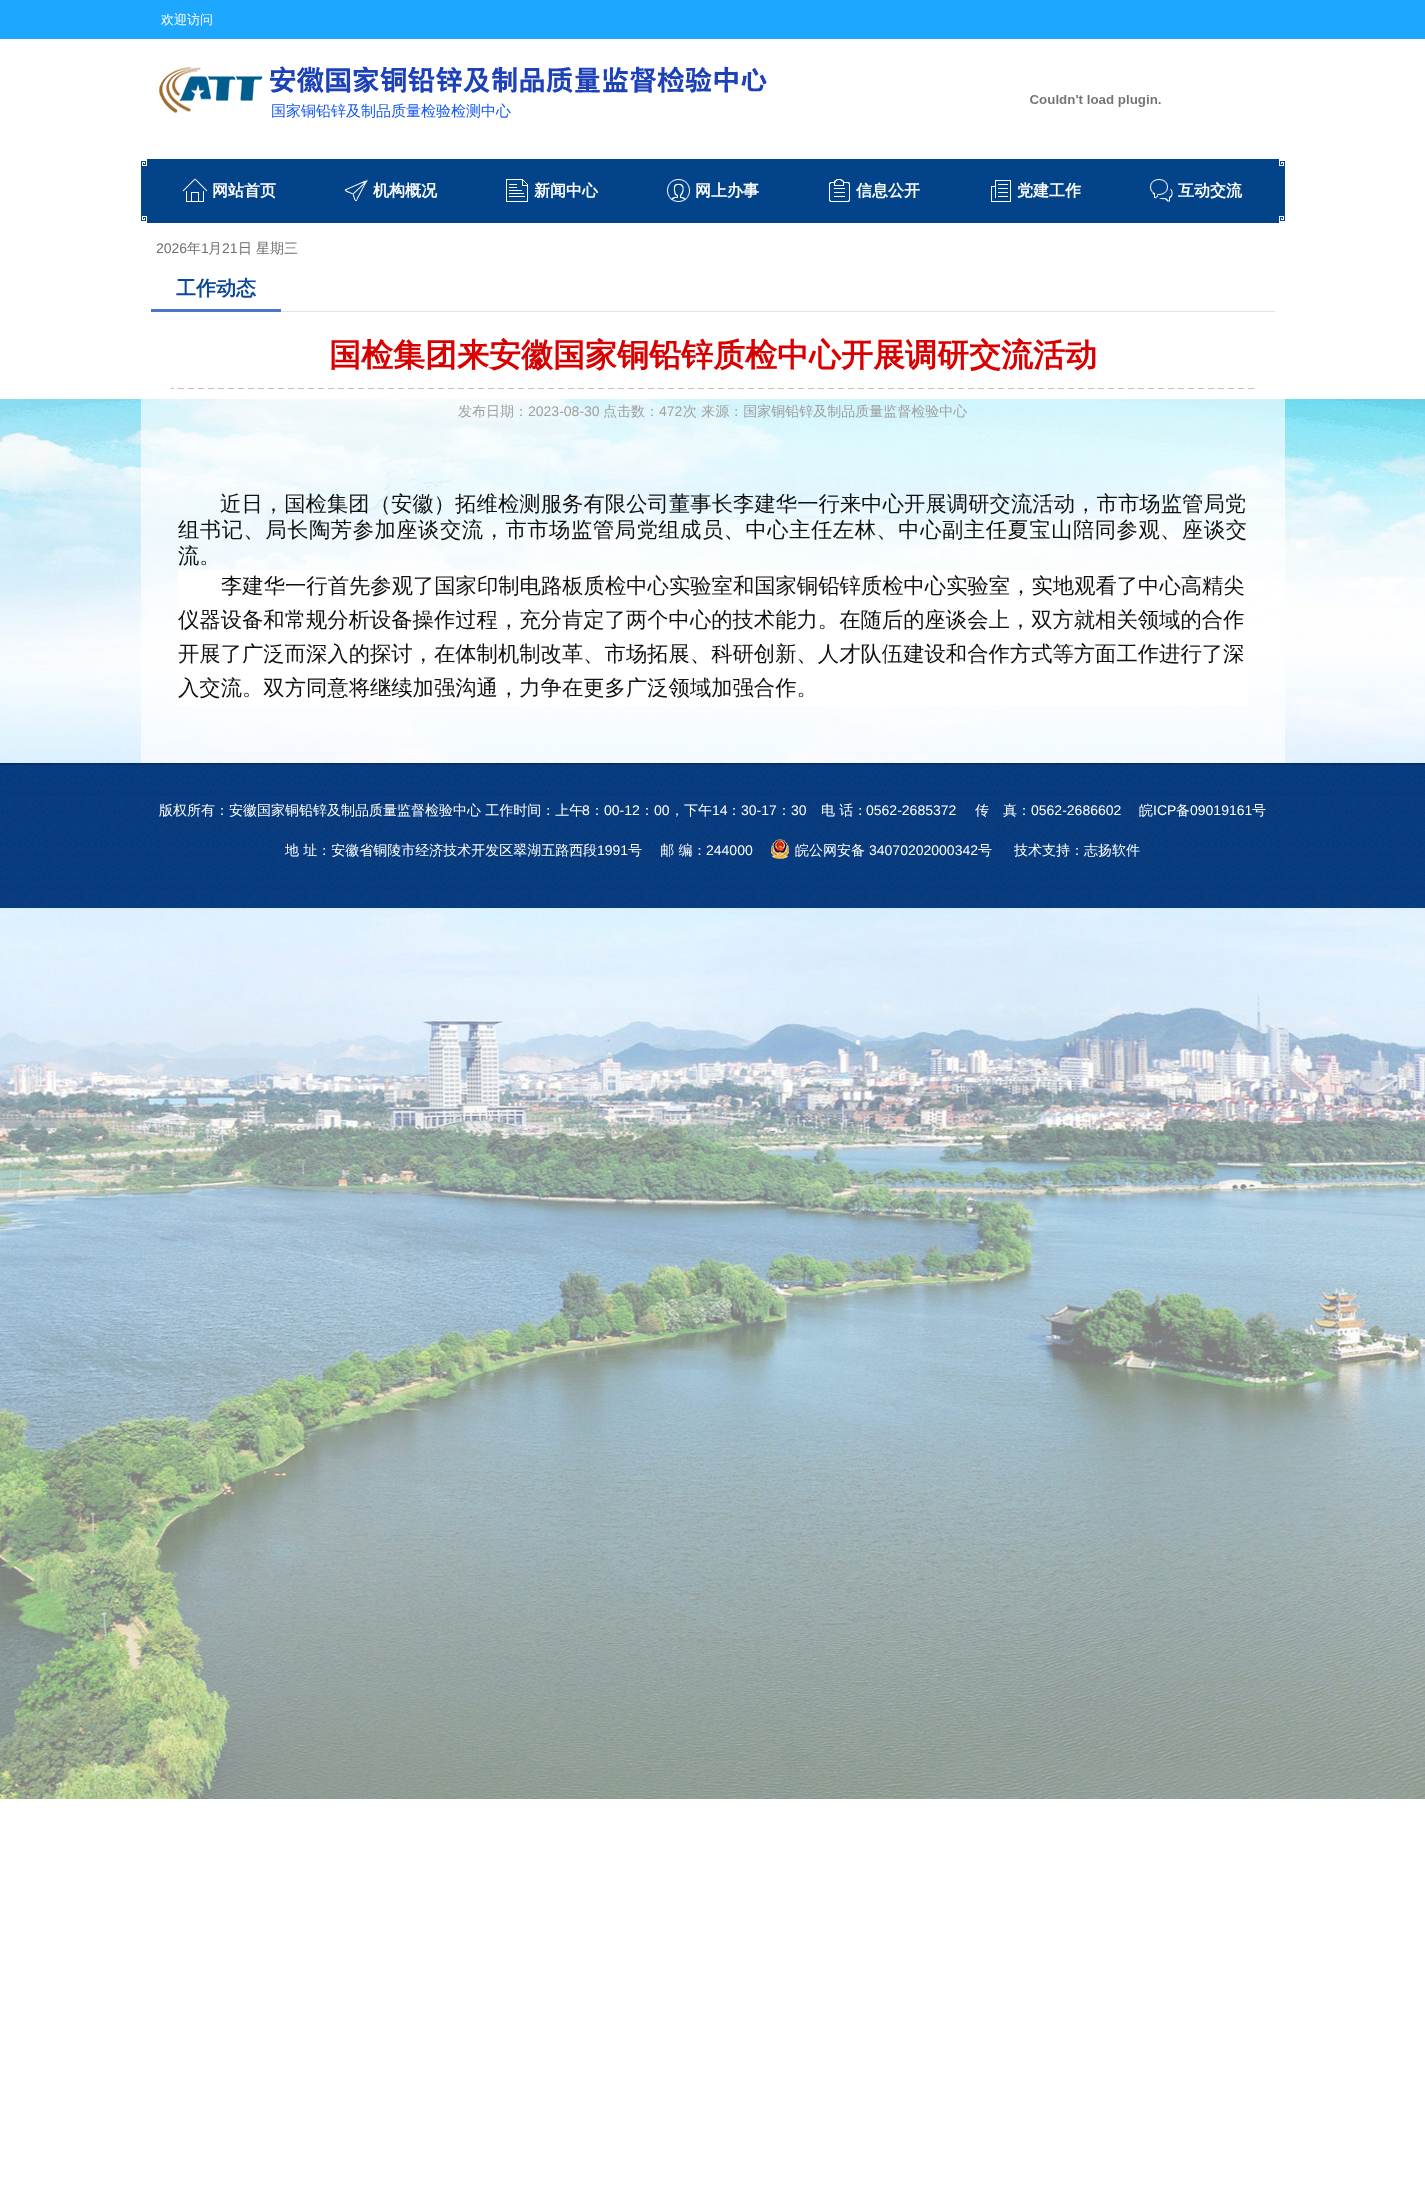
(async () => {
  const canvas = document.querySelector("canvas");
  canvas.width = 1425;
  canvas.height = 2197;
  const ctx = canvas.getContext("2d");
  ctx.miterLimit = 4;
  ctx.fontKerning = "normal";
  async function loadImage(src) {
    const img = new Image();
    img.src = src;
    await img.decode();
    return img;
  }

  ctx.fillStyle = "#ffffff";
  ctx.fillRect(0, 0, 1425, 2197);
  ctx.drawImage(await loadImage("img/1.png"), 0, 399, 1425, 1400);
  ctx.fillStyle = "#1da7ff";
  ctx.fillRect(0, 0, 1425, 39);
  ctx.drawImage(await loadImage("img/2.png"), 159, 66, 608, 47);
  ctx.drawImage(await loadImage("img/3.png"), 1030, 95, 131, 12);
  ctx.drawImage(await loadImage("img/4.png"), 141, 159, 1144, 64);
  ctx.drawImage(await loadImage("img/5.png"), 182, 178, 26, 24);
  ctx.drawImage(await loadImage("img/6.png"), 344, 179, 25, 23);
  ctx.drawImage(await loadImage("img/7.png"), 506, 179, 22, 23);
  ctx.drawImage(await loadImage("img/8.png"), 667, 179, 23, 23);
  ctx.drawImage(await loadImage("img/9.png"), 829, 179, 21, 23);
  ctx.drawImage(await loadImage("img/10.png"), 991, 180, 20, 22);
  ctx.drawImage(await loadImage("img/11.png"), 1150, 179, 23, 23);
  for (const [x, y, w, h, color] of [
    [141, 399, 1144, 364, "rgba(255, 255, 255, 0.64)"],
    [281, 311, 994, 1, "#dce4ee"],
    [151, 309, 130, 3, "#4d75ce"],
  ]) {
    ctx.fillStyle = color;
    ctx.fillRect(x, y, w, h);
  }
  ctx.drawImage(await loadImage("img/12.png"), 171, 388, 1083, 1);
  ctx.fillStyle = "#ffffff";
  ctx.fillRect(178, 570, 1070, 136);
  ctx.drawImage(await loadImage("img/13.png"), 0, 763, 1425, 145);
  ctx.drawImage(await loadImage("img/14.png"), 771, 839, 18, 20);
  ctx.font = "500 13px WenQuanYi Zen Hei";
  ctx.fillText("欢迎访问", 161, 24);
  ctx.font = "500 15px WenQuanYi Zen Hei";
  ctx.fillStyle = "#1257f3";
  ctx.fillText("国家铜铅锌及制品质量检验检测中心", 271, 116);
  ctx.font = "bold 16px WenQuanYi Zen Hei";
  ctx.fillStyle = "#ffffff";
  for (const [text, x, y] of [
    ["网站首页", 212, 196],
    ["机构概况", 373, 196],
    ["新闻中心", 534, 196],
    ["网上办事", 695, 196],
    ["信息公开", 856, 196],
    ["党建工作", 1017, 196],
    ["互动交流", 1178, 196],
  ]) {
    ctx.fillText(text, x, y);
  }
  ctx.font = "14px Liberation Sans";
  ctx.fillStyle = "#6f6f6f";
  ctx.fillText("2026", 156, 253);
  ctx.font = "500 14px WenQuanYi Zen Hei";
  ctx.fillText("年", 187, 253);
  ctx.font = "14px Liberation Sans";
  ctx.fillText("1", 201, 253);
  ctx.font = "500 14px WenQuanYi Zen Hei";
  ctx.fillText("月", 208, 253);
  ctx.font = "14px Liberation Sans";
  ctx.fillText("21", 222, 253);
  ctx.font = "500 14px WenQuanYi Zen Hei";
  ctx.fillText("日", 238, 253);
  ctx.fillText("星期三", 256, 253);
  ctx.font = "bold 20px WenQuanYi Zen Hei";
  ctx.fillStyle = "#0b4896";
  ctx.fillText("工作动态", 176, 295);
  ctx.font = "bold 32px WenQuanYi Zen Hei";
  ctx.fillStyle = "#d80000";
  ctx.fillText("国检集团来安徽国家铜铅锌质检中心开展调研交流活动", 329, 366);
  ctx.font = "500 14px WenQuanYi Zen Hei";
  ctx.fillStyle = "#9f9f9f";
  ctx.fillText("发布日期：", 458, 416);
  ctx.font = "14px Liberation Sans";
  ctx.fillText("2023-08-30", 528, 416);
  ctx.font = "500 14px WenQuanYi Zen Hei";
  ctx.fillText("点击数：", 603, 416);
  ctx.font = "14px Liberation Sans";
  ctx.fillText("472", 659, 416);
  ctx.font = "500 14px WenQuanYi Zen Hei";
  ctx.fillText("次 来源：国家铜铅锌及制品质量监督检验中心", 683, 416);
  ctx.letterSpacing = "0.05px";
  ctx.font = "500 21.33px WenQuanYi Zen Hei";
  ctx.fillStyle = "#111111";
  ctx.fillText("近日，国检集团（安徽）拓维检测服务有限公司董事长李建华一行来中心开展调研交流活动，市市场监管局党", 220, 511);
  ctx.letterSpacing = "0.5px";
  ctx.fillText("组书记、局长陶芳参加座谈交流，市市场监管局党组成员、中心主任左林、中心副主任夏宝山陪同参观、座谈交", 178, 537);
  ctx.letterSpacing = "0px";
  for (const [text, x, y] of [
    ["流。", 178, 563],
    ["李建华一行首先参观了国家印制电路板质检中心实验室和国家铜铅锌质检中心实验室，实地观看了中心高精尖", 221, 593],
    ["仪器设备和常规分析设备操作过程，充分肯定了两个中心的技术能力。在随后的座谈会上，双方就相关领域的合作", 178, 627],
    ["开展了广泛而深入的探讨，在体制机制改革、市场拓展、科研创新、人才队伍建设和合作方式等方面工作进行了深", 178, 661],
    ["入交流。双方同意将继续加强沟通，力争在更多广泛领域加强合作。", 178, 695],
  ]) {
    ctx.fillText(text, x, y);
  }
  ctx.font = "500 14px WenQuanYi Zen Hei";
  ctx.fillStyle = "#ffffff";
  ctx.fillText("版权所有：安徽国家铜铅锌及制品质量监督检验中心 工作时间：上午", 159, 815);
  ctx.font = "14px Liberation Sans";
  ctx.fillText("8", 582, 815);
  ctx.font = "500 14px WenQuanYi Zen Hei";
  ctx.fillText("：", 590, 815);
  ctx.font = "14px Liberation Sans";
  ctx.fillText("00-12", 604, 815);
  ctx.font = "500 14px WenQuanYi Zen Hei";
  ctx.fillText("：", 640, 815);
  ctx.font = "14px Liberation Sans";
  ctx.fillText("00", 654, 815);
  ctx.font = "500 14px WenQuanYi Zen Hei";
  ctx.fillText("，下午", 670, 815);
  ctx.font = "14px Liberation Sans";
  ctx.fillText("14", 712, 815);
  ctx.font = "500 14px WenQuanYi Zen Hei";
  ctx.fillText("：", 727, 815);
  ctx.font = "14px Liberation Sans";
  ctx.fillText("30-17", 741, 815);
  ctx.font = "500 14px WenQuanYi Zen Hei";
  ctx.fillText("：", 777, 815);
  ctx.font = "14px Liberation Sans";
  ctx.fillText("30", 791, 815);
  ctx.font = "500 14px WenQuanYi Zen Hei";
  ctx.fillText("电 话：", 821, 815);
  ctx.font = "14px Liberation Sans";
  ctx.fillText("0562-2685372", 866, 815);
  ctx.font = "500 14px WenQuanYi Zen Hei";
  ctx.fillText("传　真：", 975, 815);
  ctx.font = "14px Liberation Sans";
  ctx.fillText("0562-2686602", 1031, 815);
  ctx.font = "500 14px WenQuanYi Zen Hei";
  ctx.fillText("皖", 1139, 815);
  ctx.font = "14px Liberation Sans";
  ctx.fillText("ICP", 1153, 815);
  ctx.font = "500 14px WenQuanYi Zen Hei";
  ctx.fillText("备", 1176, 815);
  ctx.font = "14px Liberation Sans";
  ctx.fillText("09019161", 1190, 815);
  ctx.font = "500 14px WenQuanYi Zen Hei";
  ctx.fillText("号", 1252, 815);
  ctx.fillText("地 址：安徽省铜陵市经济技术开发区翠湖五路西段", 285, 855);
  ctx.font = "14px Liberation Sans";
  ctx.fillText("1991", 597, 855);
  ctx.font = "500 14px WenQuanYi Zen Hei";
  ctx.fillText("号　 邮 编：", 628, 855);
  ctx.font = "14px Liberation Sans";
  ctx.fillText("244000", 706, 855);
  ctx.font = "500 14px WenQuanYi Zen Hei";
  ctx.fillText("皖公网安备", 795, 855);
  ctx.font = "14px Liberation Sans";
  ctx.fillText("34070202000342", 869, 855);
  ctx.font = "500 14px WenQuanYi Zen Hei";
  ctx.fillText("号", 978, 855);
  ctx.fillText("技术支持：志扬软件", 1014, 855);
})();
